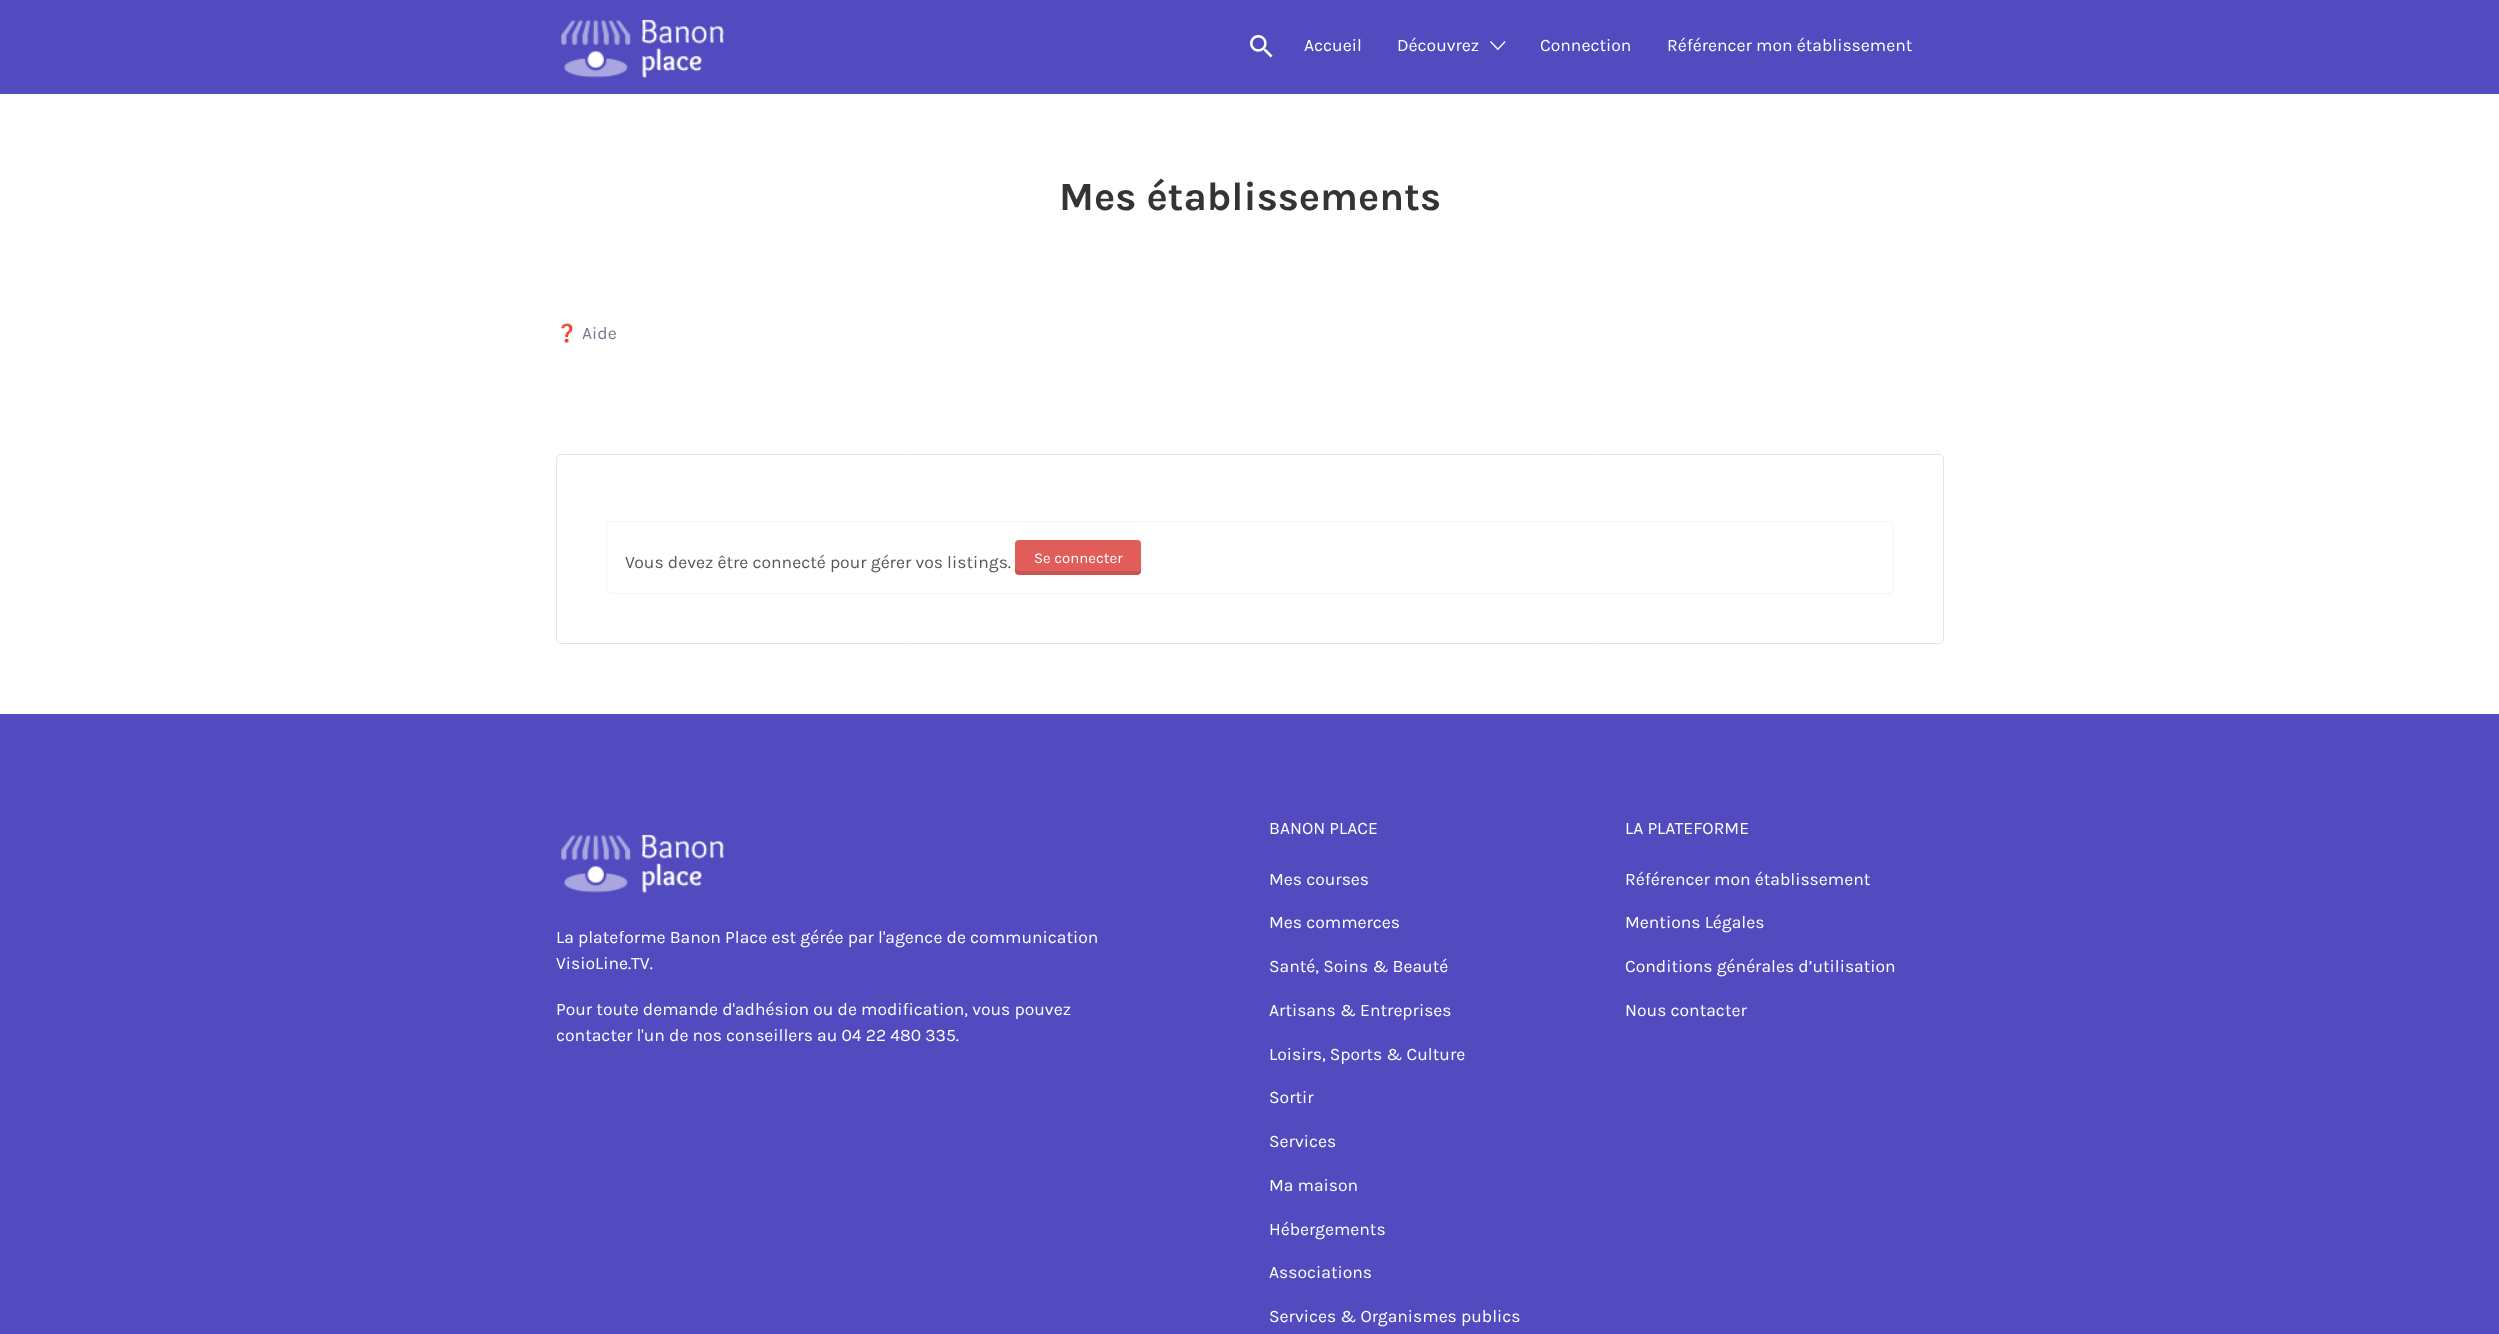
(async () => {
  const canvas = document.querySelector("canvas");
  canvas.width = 2499;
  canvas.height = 1334;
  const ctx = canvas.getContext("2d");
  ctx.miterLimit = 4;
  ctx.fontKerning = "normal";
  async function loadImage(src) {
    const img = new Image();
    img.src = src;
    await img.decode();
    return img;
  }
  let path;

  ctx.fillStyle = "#ffffff";
  ctx.fillRect(0, 0, 2499, 1334);
  ctx.fillStyle = "#514bbf";
  ctx.fillRect(0, 0, 2499, 94);
  ctx.drawImage(await loadImage("img/1.png"), 561, 19, 163, 59);
  ctx.drawImage(await loadImage("img/2.png"), 1250, 35, 23, 23);
  ctx.drawImage(await loadImage("img/3.png"), 1490, 41, 16, 10);
  ctx.beginPath();
  ctx.roundRect(556.5, 454.5, 1387, 189, 4.5);
  ctx.strokeStyle = "#e5e5e5";
  ctx.stroke();
  ctx.beginPath();
  ctx.roundRect(606.5, 521.5, 1287, 72, 4.5);
  ctx.strokeStyle = "#f4f4f4";
  ctx.stroke();
  ctx.fillStyle = "#e05d5a";
  ctx.beginPath();
  ctx.roundRect(1015, 540, 126, 35, 4);
  ctx.fill();
  ctx.fillStyle = "rgba(0, 0, 0, 0.1)";
  path = new Path2D("M1015 568V571C1015 573 1017 575 1019 575H1137C1139 575 1141 573 1141 571V568C1141 570 1140 571 1138 571H1019C1017 571 1015 570 1015 568Z");
  ctx.fill(path);
  ctx.fillStyle = "#514bbf";
  ctx.fillRect(0, 714, 2499, 620);
  ctx.drawImage(await loadImage("img/4.png"), 561, 834, 163, 59);
  ctx.font = "17.5px Karla";
  ctx.fillStyle = "#ffffff";
  for (const [text, x, y] of [
    ["Accueil", 1304, 51],
    ["Découvrez", 1397, 51],
    ["Connection", 1540, 51],
    ["Référencer mon établissement", 1667, 51],
  ]) {
    ctx.fillText(text, x, y);
  }
  ctx.font = "bold 40px Karla";
  ctx.fillStyle = "#343434";
  ctx.fillText("Mes établissements", 1059, 210);
  ctx.font = "17.5px Noto Color Emoji";
  ctx.fillStyle = "#717a8f";
  ctx.fillText("❓", 556, 339);
  ctx.font = "17.5px Karla";
  ctx.fillText("Aide", 582, 339);
  ctx.fillStyle = "#575757";
  ctx.fillText("Vous devez être connecté pour gérer vos listings.", 625, 568);
  ctx.font = "15px Karla";
  ctx.fillStyle = "#ffffff";
  ctx.fillText("Se connecter", 1034, 563);
  ctx.font = "17.5px Karla";
  for (const [text, x, y] of [
    ["La plateforme Banon Place est gérée par l'agence de communication", 556, 943],
    ["VisioLine.TV.", 556, 969],
    ["Pour toute demande d'adhésion ou de modification, vous pouvez", 556, 1015],
    ["contacter l'un de nos conseillers au 04 22 480 335.", 556, 1041],
    ["BANON PLACE", 1269, 834],
    ["Mes courses", 1269, 885],
    ["Mes commerces", 1269, 928],
    ["Santé, Soins & Beauté", 1269, 972],
    ["Artisans & Entreprises", 1269, 1016],
    ["Loisirs, Sports & Culture", 1269, 1060],
    ["Sortir", 1269, 1103],
    ["Services", 1269, 1147],
    ["Ma maison", 1269, 1191],
    ["Hébergements", 1269, 1235],
    ["Associations", 1269, 1278],
    ["Services & Organismes publics", 1269, 1322],
    ["LA PLATEFORME", 1625, 834],
    ["Référencer mon établissement", 1625, 885],
    ["Mentions Légales", 1625, 928],
    ["Conditions générales d’utilisation", 1625, 972],
    ["Nous contacter", 1625, 1016],
  ]) {
    ctx.fillText(text, x, y);
  }
})();
